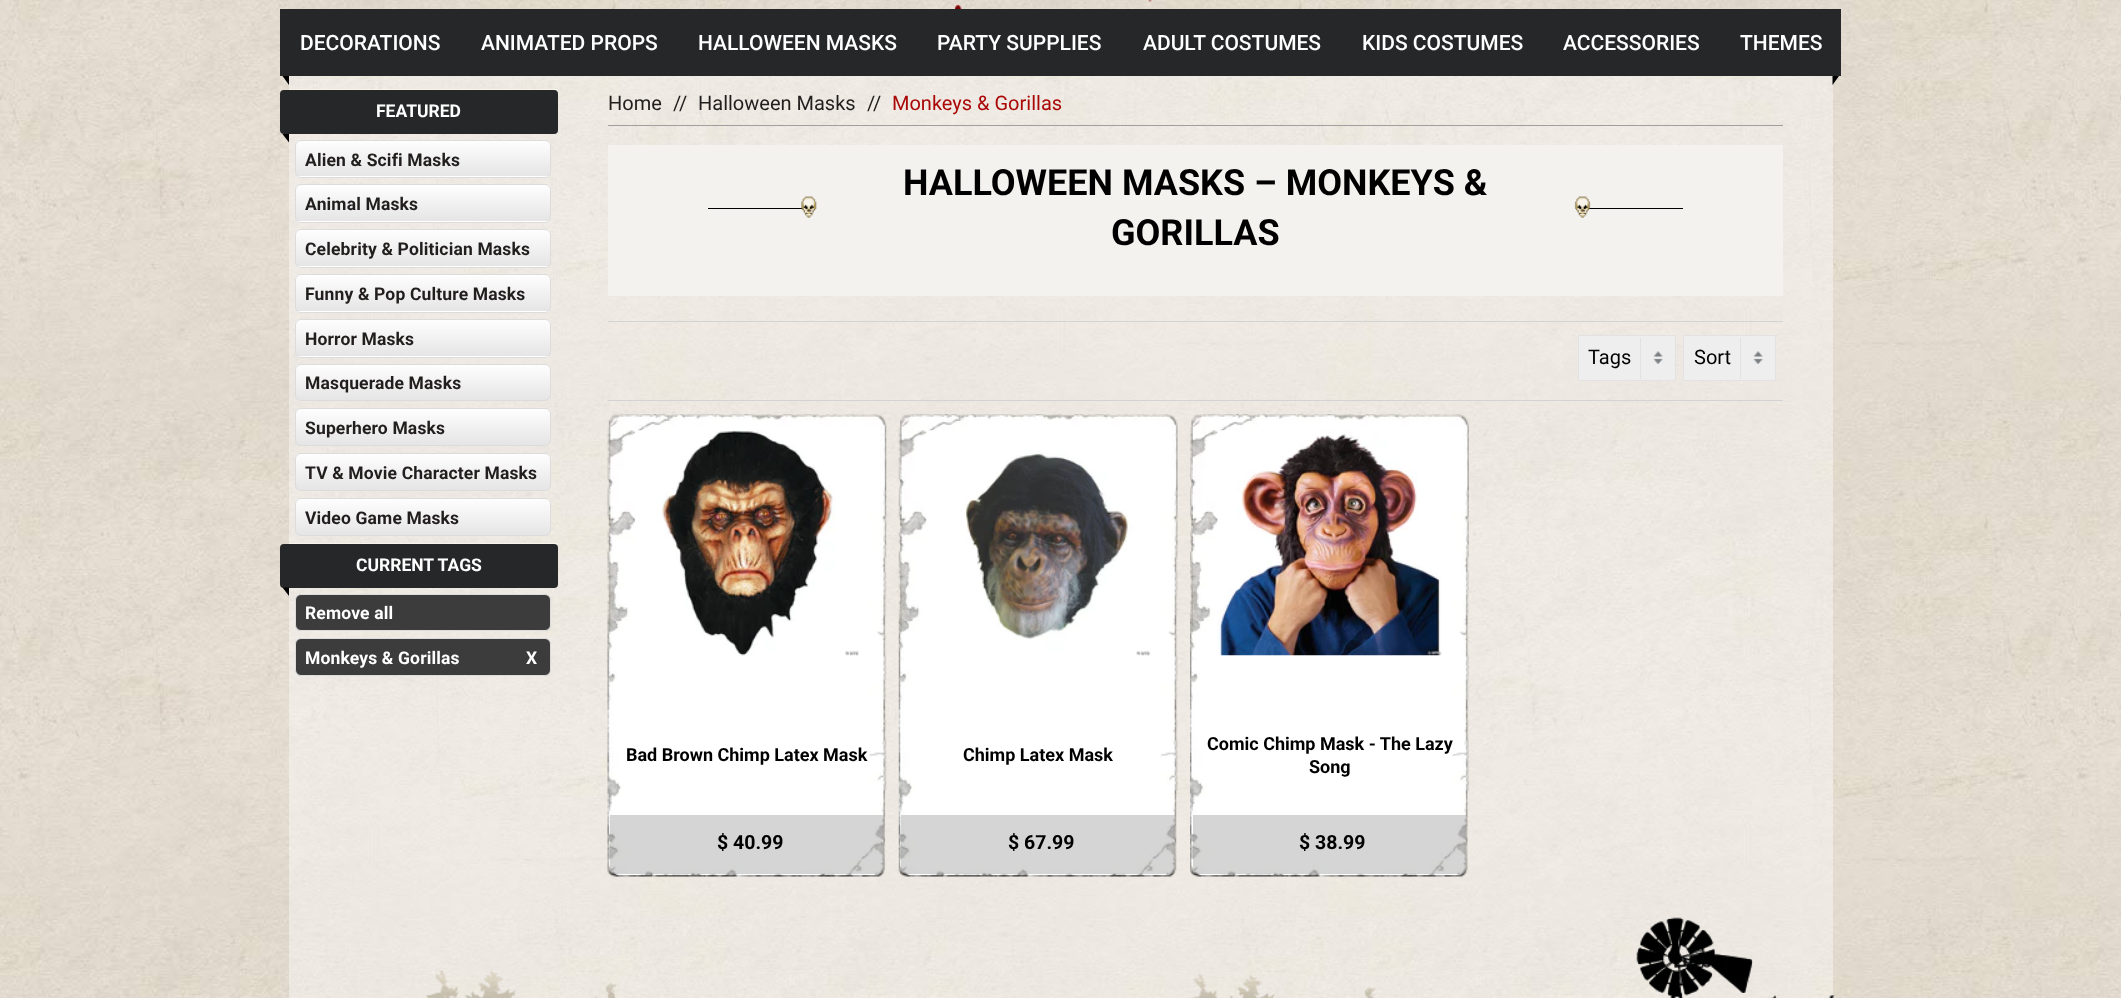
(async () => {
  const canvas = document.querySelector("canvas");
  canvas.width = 2121;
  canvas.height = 998;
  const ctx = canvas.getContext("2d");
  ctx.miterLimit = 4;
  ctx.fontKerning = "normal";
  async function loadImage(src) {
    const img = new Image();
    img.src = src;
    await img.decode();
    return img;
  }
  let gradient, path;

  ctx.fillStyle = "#ffffff";
  ctx.fillRect(0, 0, 2121, 998);
  ctx.drawImage(await loadImage("img/1.png"), 0, 0, 2121, 998);
  ctx.drawImage(await loadImage("img/2.png"), 954, 0, 198, 9);
  ctx.drawImage(await loadImage("img/3.png"), 426, 917, 1409, 81);
  ctx.fillStyle = "#262728";
  ctx.fillRect(280, 9, 1561, 67);
  ctx.fillStyle = "#000000";
  path = new Path2D("M289 76V85L282.5 76Z");
  ctx.fill(path);
  ctx.fillStyle = "rgba(255, 255, 255, 0.4)";
  ctx.fillRect(289, 76, 1544, 922);
  ctx.fillStyle = "#000000";
  path = new Path2D("M1832.5 85V76H1839Z");
  ctx.fill(path);
  ctx.fillStyle = "#f8f4e9";
  ctx.fillRect(289, 89, 269, 1);
  ctx.fillStyle = "#262728";
  ctx.beginPath();
  ctx.roundRect(280, 90, 278, 44, 4);
  ctx.fill();
  ctx.fillStyle = "#000000";
  path = new Path2D("M289 134V142.5L282.5 134Z");
  ctx.fill(path);
  ctx.save();
  ctx.beginPath();
  ctx.roundRect(295, 140, 256, 38, 6);
  ctx.clip();
  gradient = ctx.createLinearGradient(423, 141, 423, 176);
  gradient.addColorStop(0, "#fefefe");
  gradient.addColorStop(1, "#e5e5e5");
  ctx.fillStyle = gradient;
  ctx.fillRect(295, 141, 256, 35);
  gradient = ctx.createLinearGradient(423, 176, 423, 211);
  gradient.addColorStop(0, "#fefefe");
  gradient.addColorStop(1, "#e5e5e5");
  ctx.fillStyle = gradient;
  ctx.fillRect(295, 176, 256, 2);
  ctx.restore();
  ctx.beginPath();
  ctx.roundRect(295.5, 140.5, 255, 37, 5.5);
  ctx.strokeStyle = "#dcdcdc";
  ctx.stroke();
  ctx.save();
  ctx.beginPath();
  ctx.roundRect(295, 184, 256, 39, 6);
  ctx.clip();
  gradient = ctx.createLinearGradient(423, 185, 423, 221);
  gradient.addColorStop(0, "#fefefe");
  gradient.addColorStop(1, "#e5e5e5");
  ctx.fillStyle = gradient;
  ctx.fillRect(295, 185, 256, 36);
  gradient = ctx.createLinearGradient(423, 221, 423, 258);
  gradient.addColorStop(0, "#fefefe");
  gradient.addColorStop(1, "#e5e5e5");
  ctx.fillStyle = gradient;
  ctx.fillRect(295, 221, 256, 2);
  ctx.restore();
  ctx.beginPath();
  ctx.roundRect(295.5, 184.5, 255, 38, 5.5);
  ctx.stroke();
  ctx.save();
  ctx.beginPath();
  ctx.roundRect(295, 229, 256, 39, 6);
  ctx.clip();
  gradient = ctx.createLinearGradient(423, 230, 423, 266);
  gradient.addColorStop(0, "#fefefe");
  gradient.addColorStop(1, "#e5e5e5");
  ctx.fillStyle = gradient;
  ctx.fillRect(295, 230, 256, 36);
  gradient = ctx.createLinearGradient(423, 266, 423, 303);
  gradient.addColorStop(0, "#fefefe");
  gradient.addColorStop(1, "#e5e5e5");
  ctx.fillStyle = gradient;
  ctx.fillRect(295, 266, 256, 2);
  ctx.restore();
  ctx.beginPath();
  ctx.roundRect(295.5, 229.5, 255, 38, 5.5);
  ctx.stroke();
  ctx.save();
  ctx.beginPath();
  ctx.roundRect(295, 274, 256, 39, 6);
  ctx.clip();
  gradient = ctx.createLinearGradient(423, 275, 423, 311);
  gradient.addColorStop(0, "#fefefe");
  gradient.addColorStop(1, "#e5e5e5");
  ctx.fillStyle = gradient;
  ctx.fillRect(295, 275, 256, 36);
  gradient = ctx.createLinearGradient(423, 311, 423, 348);
  gradient.addColorStop(0, "#fefefe");
  gradient.addColorStop(1, "#e5e5e5");
  ctx.fillStyle = gradient;
  ctx.fillRect(295, 311, 256, 2);
  ctx.restore();
  ctx.beginPath();
  ctx.roundRect(295.5, 274.5, 255, 38, 5.5);
  ctx.stroke();
  ctx.save();
  ctx.beginPath();
  ctx.roundRect(295, 319, 256, 39, 6);
  ctx.clip();
  gradient = ctx.createLinearGradient(423, 320, 423, 356);
  gradient.addColorStop(0, "#fefefe");
  gradient.addColorStop(1, "#e5e5e5");
  ctx.fillStyle = gradient;
  ctx.fillRect(295, 320, 256, 36);
  gradient = ctx.createLinearGradient(423, 356, 423, 393);
  gradient.addColorStop(0, "#fefefe");
  gradient.addColorStop(1, "#e5e5e5");
  ctx.fillStyle = gradient;
  ctx.fillRect(295, 356, 256, 2);
  ctx.restore();
  ctx.beginPath();
  ctx.roundRect(295.5, 319.5, 255, 38, 5.5);
  ctx.stroke();
  ctx.save();
  ctx.beginPath();
  ctx.roundRect(295, 364, 256, 37, 6);
  ctx.clip();
  gradient = ctx.createLinearGradient(423, 365, 423, 400);
  gradient.addColorStop(0, "#fefefe");
  gradient.addColorStop(1, "#e5e5e5");
  ctx.fillStyle = gradient;
  ctx.fillRect(295, 365, 256, 35);
  ctx.restore();
  ctx.beginPath();
  ctx.roundRect(295.5, 364.5, 255, 36, 5.5);
  ctx.stroke();
  ctx.save();
  ctx.beginPath();
  ctx.roundRect(295, 408, 256, 38, 6);
  ctx.clip();
  gradient = ctx.createLinearGradient(423, 409, 423, 445);
  gradient.addColorStop(0, "#fefefe");
  gradient.addColorStop(1, "#e5e5e5");
  ctx.fillStyle = gradient;
  ctx.fillRect(295, 409, 256, 36);
  ctx.restore();
  ctx.beginPath();
  ctx.roundRect(295.5, 408.5, 255, 37, 5.5);
  ctx.stroke();
  ctx.save();
  ctx.beginPath();
  ctx.roundRect(295, 453, 256, 38, 6);
  ctx.clip();
  gradient = ctx.createLinearGradient(423, 454, 423, 490);
  gradient.addColorStop(0, "#fefefe");
  gradient.addColorStop(1, "#e5e5e5");
  ctx.fillStyle = gradient;
  ctx.fillRect(295, 454, 256, 36);
  ctx.restore();
  ctx.beginPath();
  ctx.roundRect(295.5, 453.5, 255, 37, 5.5);
  ctx.stroke();
  ctx.save();
  ctx.beginPath();
  ctx.roundRect(295, 498, 256, 38, 6);
  ctx.clip();
  gradient = ctx.createLinearGradient(423, 499, 423, 535);
  gradient.addColorStop(0, "#fefefe");
  gradient.addColorStop(1, "#e5e5e5");
  ctx.fillStyle = gradient;
  ctx.fillRect(295, 499, 256, 36);
  ctx.restore();
  ctx.beginPath();
  ctx.roundRect(295.5, 498.5, 255, 37, 5.5);
  ctx.stroke();
  ctx.fillStyle = "#f8f4e9";
  ctx.fillRect(289, 543, 269, 1);
  ctx.fillStyle = "#262728";
  ctx.beginPath();
  ctx.roundRect(280, 544, 278, 44, 4);
  ctx.fill();
  ctx.fillStyle = "#000000";
  path = new Path2D("M289 587.5V596L282.5 587.5Z");
  ctx.fill(path);
  ctx.fillStyle = "#3c3c3c";
  ctx.beginPath();
  ctx.roundRect(295.5, 594.5, 255, 36, 5.5);
  ctx.fill();
  ctx.stroke();
  ctx.beginPath();
  ctx.roundRect(295.5, 638.5, 255, 37, 5.5);
  ctx.fill();
  ctx.stroke();
  for (const [x, y, w, h, color] of [
    [608, 125, 1175, 1, "#9f9f9f"],
    [608, 145, 1175, 151, "#f4f2ee"],
    [708, 208, 975, 1, "#000000"],
    [805, 208, 780, 1, "#f4f2ee"],
  ]) {
    ctx.fillStyle = color;
    ctx.fillRect(x, y, w, h);
  }
  ctx.drawImage(await loadImage("img/4.png"), 801, 196, 16, 22);
  ctx.drawImage(await loadImage("img/5.png"), 1574, 196, 17, 22);
  ctx.fillStyle = "#d3d3d3";
  ctx.fillRect(608, 321, 1175, 1);
  ctx.fillRect(608, 400, 1175, 1);
  ctx.fillStyle = "#eeeeee";
  ctx.beginPath();
  ctx.rect(1578.5, 335.5, 97, 45);
  ctx.fill();
  ctx.strokeStyle = "#e2e2e2";
  ctx.stroke();
  ctx.drawImage(await loadImage("img/6.png"), 1653, 351, 10, 13);
  ctx.fillStyle = "#e2e2e2";
  ctx.fillRect(1640, 338, 1, 41);
  ctx.fillStyle = "#eeeeee";
  ctx.beginPath();
  ctx.rect(1683.5, 335.5, 92, 45);
  ctx.fill();
  ctx.stroke();
  ctx.drawImage(await loadImage("img/7.png"), 1753, 351, 10, 13);
  ctx.fillStyle = "#e2e2e2";
  ctx.fillRect(1740, 338, 1, 41);
  ctx.drawImage(await loadImage("img/8.png"), 607, 414, 280, 463);
  ctx.drawImage(await loadImage("img/9.png"), 635, 430, 224, 226);
  ctx.fillStyle = "rgba(150, 150, 150, 0.4)";
  ctx.beginPath();
  ctx.roundRect(610, 815, 274, 59, [0, 0, 6, 6]);
  ctx.fill();
  ctx.drawImage(await loadImage("img/10.png"), 898, 414, 280, 463);
  ctx.drawImage(await loadImage("img/11.png"), 926, 430, 225, 226);
  ctx.beginPath();
  ctx.roundRect(901, 815, 274, 59, [0, 0, 6, 6]);
  ctx.fill();
  ctx.drawImage(await loadImage("img/12.png"), 1190, 414, 279, 463);
  ctx.drawImage(await loadImage("img/13.png"), 1217, 430, 225, 226);
  ctx.beginPath();
  ctx.roundRect(1193, 815, 273, 59, [0, 0, 6, 6]);
  ctx.fill();
  ctx.drawImage(await loadImage("img/14.png"), 426, 917, 1407, 81);
  ctx.font = "500 21px Roboto";
  ctx.fillStyle = "#ffffff";
  for (const [text, x, y] of [
    ["DECORATIONS", 300, 50],
    ["ANIMATED PROPS", 481, 50],
    ["HALLOWEEN MASKS", 698, 50],
    ["PARTY SUPPLIES", 937, 50],
    ["ADULT COSTUMES", 1143, 50],
    ["KIDS COSTUMES", 1362, 50],
    ["ACCESSORIES", 1563, 50],
    ["THEMES", 1740, 50],
  ]) {
    ctx.fillText(text, x, y);
  }
  ctx.font = "bold 17.5px Roboto";
  ctx.fillText("FEATURED", 376, 117);
  ctx.letterSpacing = "0.15px";
  ctx.fillStyle = "#211e1d";
  for (const [text, x, y] of [
    ["Alien & Scifi Masks", 305, 166],
    ["Animal Masks", 305, 210],
    ["Celebrity & Politician Masks", 305, 255],
    ["Funny & Pop Culture Masks", 305, 300],
    ["Horror Masks", 305, 345],
    ["Masquerade Masks", 305, 389],
    ["Superhero Masks", 305, 434],
    ["TV & Movie Character Masks", 305, 479],
    ["Video Game Masks", 305, 524],
  ]) {
    ctx.fillText(text, x, y);
  }
  ctx.letterSpacing = "0px";
  ctx.fillStyle = "#ffffff";
  ctx.fillText("CURRENT TAGS", 356, 571);
  ctx.letterSpacing = "0.15px";
  for (const [text, x, y] of [
    ["Remove all", 305, 619],
    ["Monkeys & Gorillas", 305, 664],
    ["X", 526, 664],
  ]) {
    ctx.fillText(text, x, y);
  }
  ctx.letterSpacing = "0px";
  ctx.font = "20px Roboto";
  ctx.fillStyle = "#211e1d";
  for (const [text, x, y] of [
    ["Home", 608, 110],
    ["//", 673, 110],
    ["Halloween Masks", 698, 110],
    ["//", 867, 110],
  ]) {
    ctx.fillText(text, x, y);
  }
  ctx.fillStyle = "#aa0707";
  ctx.fillText("Monkeys & Gorillas", 892, 110);
  ctx.font = "bold 36px Roboto";
  ctx.fillStyle = "#000000";
  ctx.fillText("HALLOWEEN MASKS – MONKEYS &", 903, 195);
  ctx.fillText("GORILLAS", 1111, 245);
  ctx.font = "20px Roboto";
  ctx.fillText("Tags", 1588, 364);
  ctx.fillText("Sort", 1694, 364);
  ctx.font = "bold 18px Roboto";
  ctx.fillText("Bad Brown Chimp Latex Mask", 626, 761);
  ctx.font = "bold 19.5px Roboto";
  ctx.fillText("$ 40.99", 717, 849);
  ctx.font = "bold 18px Roboto";
  ctx.fillText("Chimp Latex Mask", 963, 761);
  ctx.font = "bold 19.5px Roboto";
  ctx.fillText("$ 67.99", 1008, 849);
  ctx.font = "bold 18px Roboto";
  ctx.fillText("Comic Chimp Mask - The Lazy", 1207, 750);
  ctx.fillText("Song", 1309, 773);
  ctx.font = "bold 19.5px Roboto";
  ctx.fillText("$ 38.99", 1299, 849);
})();
